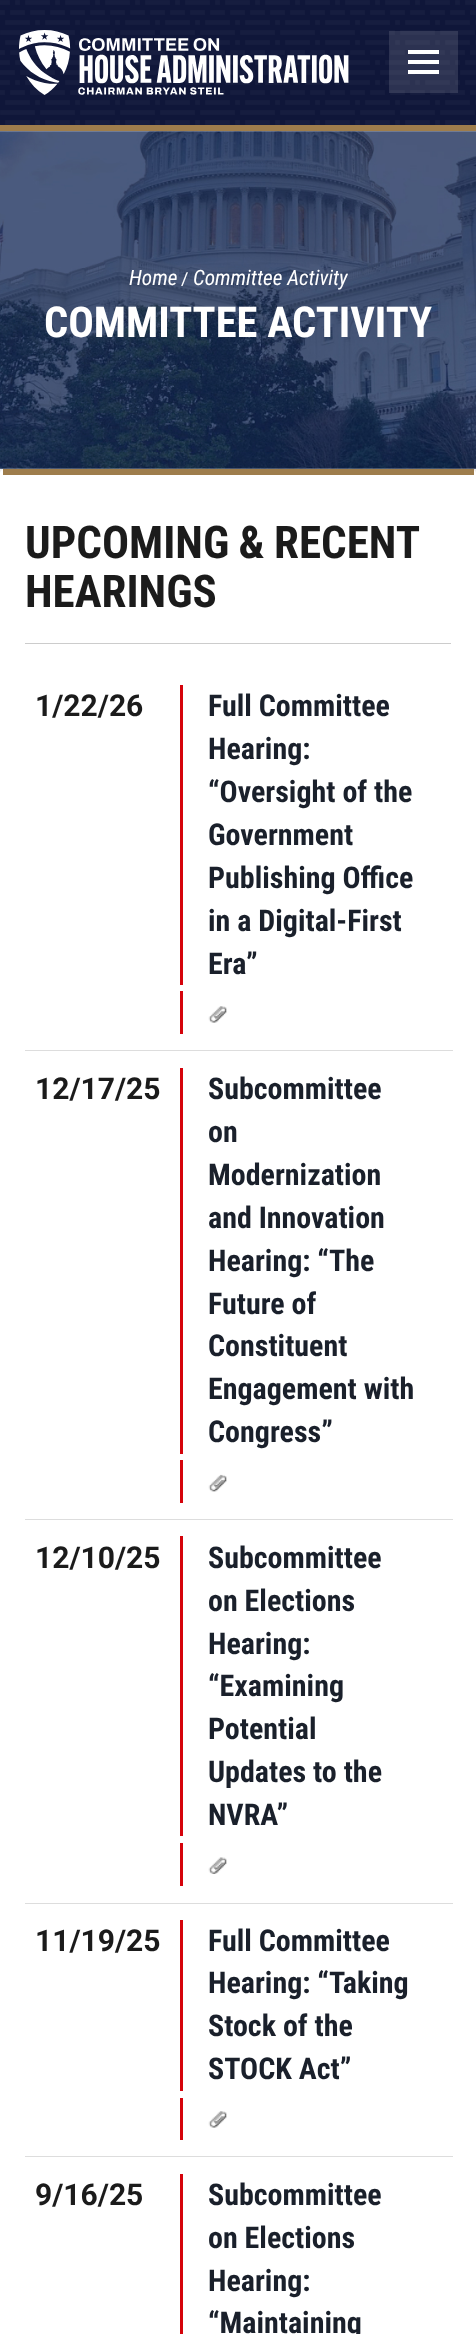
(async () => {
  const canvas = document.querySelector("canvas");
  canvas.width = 476;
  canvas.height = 2334;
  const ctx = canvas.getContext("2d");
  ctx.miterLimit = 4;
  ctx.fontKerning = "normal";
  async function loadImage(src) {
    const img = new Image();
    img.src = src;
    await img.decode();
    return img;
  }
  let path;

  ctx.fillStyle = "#ffffff";
  ctx.fillRect(0, 0, 476, 2334);
  ctx.drawImage(await loadImage("img/1.png"), 0, 0, 476, 132);
  ctx.fillStyle = "#9e7d4c";
  ctx.fillRect(0, 125, 476, 6);
  ctx.drawImage(await loadImage("img/2.png"), 19, 30, 330, 65);
  for (const [x, y, w, h, color] of [
    [389, 31, 69, 62, "rgba(255, 255, 255, 0.12)"],
    [408, 50, 31, 4, "#ffffff"],
    [408, 60, 31, 4, "#ffffff"],
    [408, 70, 31, 4, "#ffffff"],
  ]) {
    ctx.fillStyle = color;
    ctx.fillRect(x, y, w, h);
  }
  ctx.drawImage(await loadImage("img/3.png"), 0, 131, 476, 343);
  ctx.drawImage(await loadImage("img/4.png"), 0, 131, 476, 338);
  path = new Path2D("M5 469H471C474 469 476 471 476 474V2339H0V474C0 471 2 469 5 469Z");
  ctx.fill(path);
  for (const [x, y, w, h, color] of [
    [3, 469, 471, 6, "#9e7d4c"],
    [25, 643, 426, 1, "#cccccc"],
    [180, 685, 3, 300, "#d5030b"],
    [180, 991, 3, 43, "#d5030b"],
  ]) {
    ctx.fillStyle = color;
    ctx.fillRect(x, y, w, h);
  }
  ctx.drawImage(await loadImage("img/5.png"), 208, 1006, 19, 17);
  for (const [x, y, w, h, color] of [
    [25, 1050, 428, 1, "#dddddd"],
    [180, 1068, 3, 386, "#d5030b"],
    [180, 1460, 3, 43, "#d5030b"],
  ]) {
    ctx.fillStyle = color;
    ctx.fillRect(x, y, w, h);
  }
  ctx.drawImage(await loadImage("img/6.png"), 208, 1474, 19, 18);
  for (const [x, y, w, h, color] of [
    [25, 1519, 428, 1, "#dddddd"],
    [180, 1536, 3, 300, "#d5030b"],
    [180, 1843, 3, 43, "#d5030b"],
  ]) {
    ctx.fillStyle = color;
    ctx.fillRect(x, y, w, h);
  }
  ctx.drawImage(await loadImage("img/7.png"), 208, 1857, 19, 17);
  for (const [x, y, w, h, color] of [
    [25, 1903, 428, 1, "#dddddd"],
    [180, 1920, 3, 171, "#d5030b"],
    [180, 2098, 3, 42, "#d5030b"],
  ]) {
    ctx.fillStyle = color;
    ctx.fillRect(x, y, w, h);
  }
  ctx.drawImage(await loadImage("img/5.png"), 208, 2111, 19, 17);
  ctx.fillStyle = "#dddddd";
  ctx.fillRect(25, 2156, 428, 1);
  ctx.fillStyle = "#d5030b";
  ctx.fillRect(180, 2174, 3, 160);
  ctx.font = "italic 21.25px Roboto Condensed";
  ctx.fillStyle = "#ffffff";
  ctx.fillText("Home", 129, 285);
  ctx.font = "18px Roboto";
  ctx.fillText("/", 181, 285);
  ctx.font = "italic 21.25px Roboto Condensed";
  ctx.fillText("Committee Activity", 193, 285);
  ctx.font = "bold 42.5px Roboto Condensed";
  ctx.fillText("COMMITTEE ACTIVITY", 44, 337);
  ctx.wordSpacing = "-1px";
  ctx.font = "bold 45px Roboto Condensed";
  ctx.fillStyle = "#1b1b1b";
  ctx.fillText("UPCOMING & RECENT", 25, 558);
  ctx.wordSpacing = "0px";
  ctx.fillText("HEARINGS", 25, 607);
  ctx.font = "bold 30px Roboto";
  ctx.fillText("1/22/26", 35, 716);
  ctx.font = "bold 30px Roboto Condensed";
  ctx.fillStyle = "#1a202b";
  for (const [text, x, y] of [
    ["Full Committee", 208, 716],
    ["Hearing:", 208, 759],
    ["“Oversight of the", 208, 802],
    ["Government", 208, 845],
    ["Publishing Office", 208, 888],
    ["in a Digital-First", 208, 931],
    ["Era”", 208, 974],
  ]) {
    ctx.fillText(text, x, y);
  }
  ctx.font = "bold 30px Roboto";
  ctx.fillStyle = "#1b1b1b";
  ctx.fillText("12/17/25", 35, 1099);
  ctx.font = "bold 30px Roboto Condensed";
  ctx.fillStyle = "#1a202b";
  for (const [text, x, y] of [
    ["Subcommittee", 208, 1099],
    ["on", 208, 1142],
    ["Modernization", 208, 1185],
    ["and Innovation", 208, 1228],
    ["Hearing: “The", 208, 1271],
    ["Future of", 208, 1314],
    ["Constituent", 208, 1356],
    ["Engagement with", 208, 1399],
    ["Congress”", 208, 1442],
  ]) {
    ctx.fillText(text, x, y);
  }
  ctx.font = "bold 30px Roboto";
  ctx.fillStyle = "#1b1b1b";
  ctx.fillText("12/10/25", 35, 1568);
  ctx.font = "bold 30px Roboto Condensed";
  ctx.fillStyle = "#1a202b";
  for (const [text, x, y] of [
    ["Subcommittee", 208, 1568],
    ["on Elections", 208, 1611],
    ["Hearing:", 208, 1654],
    ["“Examining", 208, 1696],
    ["Potential", 208, 1739],
    ["Updates to the", 208, 1782],
    ["NVRA”", 208, 1825],
  ]) {
    ctx.fillText(text, x, y);
  }
  ctx.font = "bold 30px Roboto";
  ctx.fillStyle = "#1b1b1b";
  ctx.fillText("11/19/25", 35, 1951);
  ctx.font = "bold 30px Roboto Condensed";
  ctx.fillStyle = "#1a202b";
  for (const [text, x, y] of [
    ["Full Committee", 208, 1951],
    ["Hearing: “Taking", 208, 1993],
    ["Stock of the", 208, 2036],
    ["STOCK Act”", 208, 2079],
  ]) {
    ctx.fillText(text, x, y);
  }
  ctx.font = "bold 30px Roboto";
  ctx.fillStyle = "#1b1b1b";
  ctx.fillText("9/16/25", 35, 2205);
  ctx.font = "bold 30px Roboto Condensed";
  ctx.fillStyle = "#1a202b";
  for (const [text, x, y] of [
    ["Subcommittee", 208, 2205],
    ["on Elections", 208, 2248],
    ["Hearing:", 208, 2291],
    ["“Maintaining", 208, 2333],
  ]) {
    ctx.fillText(text, x, y);
  }
})();
